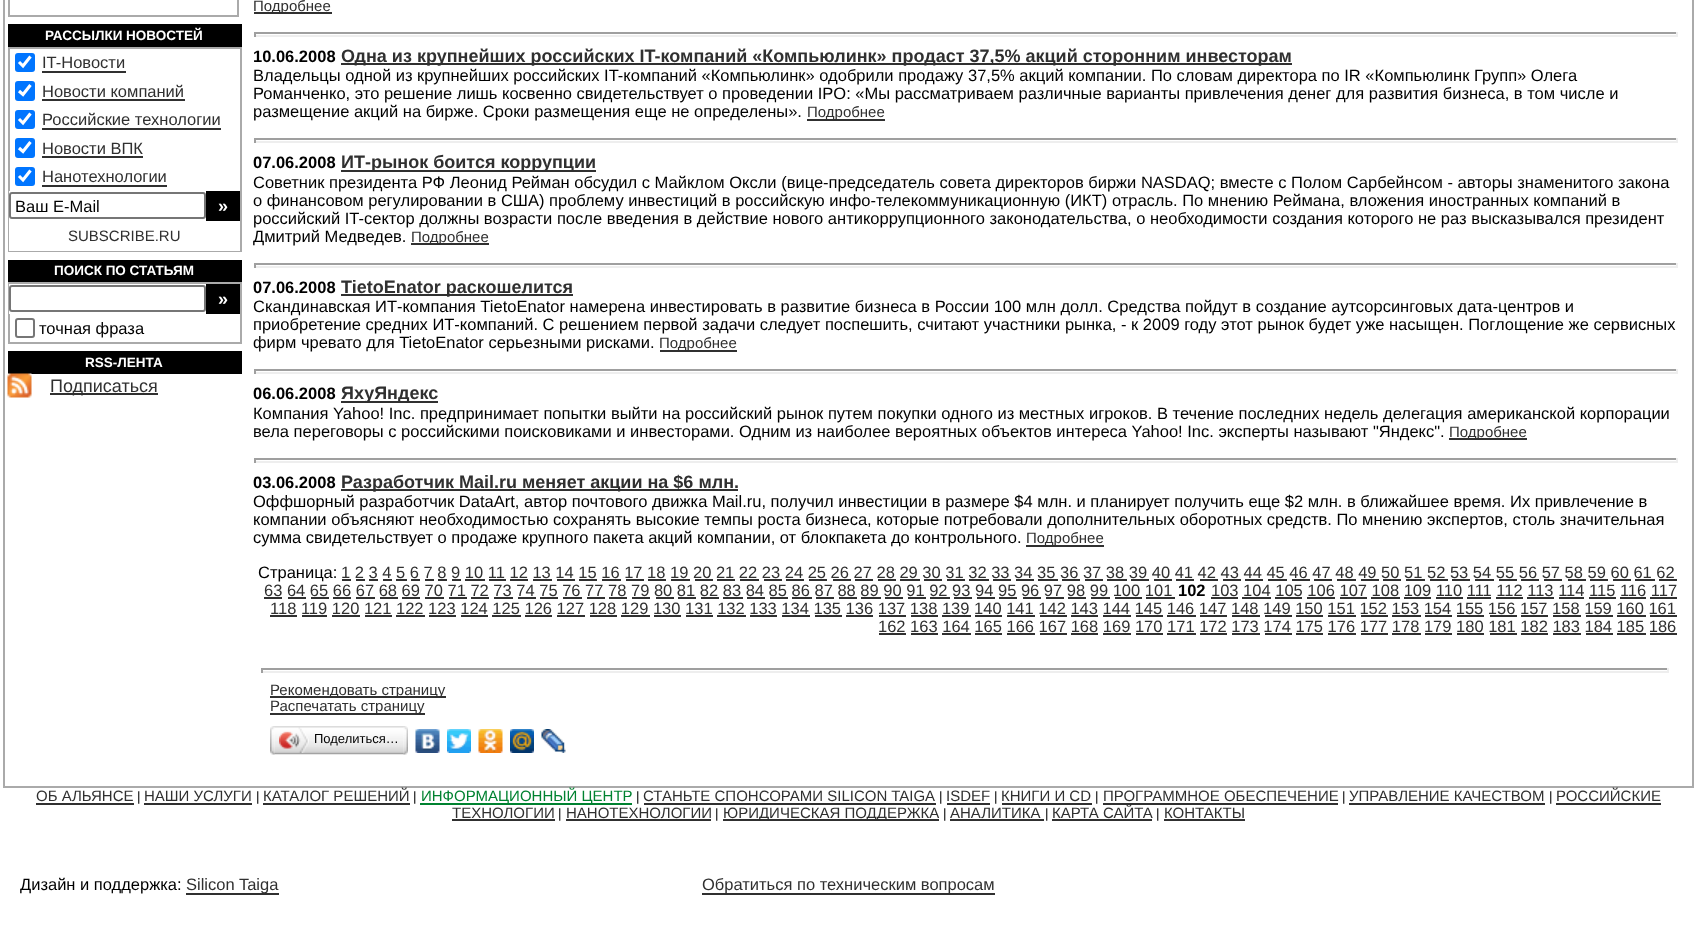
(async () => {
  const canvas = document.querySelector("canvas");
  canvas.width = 1696;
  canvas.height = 926;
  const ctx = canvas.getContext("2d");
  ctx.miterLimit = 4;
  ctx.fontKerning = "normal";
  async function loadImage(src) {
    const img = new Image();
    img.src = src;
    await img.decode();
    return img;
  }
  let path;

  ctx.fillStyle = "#ffffff";
  ctx.fillRect(0, 0, 1696, 926);
  ctx.strokeStyle = "#aaaaaa";
  ctx.lineWidth = 2;
  ctx.strokeRect(4, -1, 1689, 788);
  for (const [x, y, w, h, color] of [
    [237, 0, 2, 17, "#aaaaaa"],
    [8, 15, 231, 2, "#aaaaaa"],
    [8, 0, 2, 17, "#aaaaaa"],
    [8, 24, 234, 23, "#000000"],
  ]) {
    ctx.fillStyle = color;
    ctx.fillRect(x, y, w, h);
  }
  ctx.strokeRect(9, 48, 232, 203);
  ctx.fillStyle = "#0075ff";
  ctx.beginPath();
  ctx.roundRect(15, 53, 20, 19, 3);
  ctx.fill();
  path = new Path2D("M19 62L23 66L30.5 56.5");
  ctx.strokeStyle = "#ffffff";
  ctx.lineWidth = 3.1;
  ctx.stroke(path);
  ctx.fillStyle = "#303030";
  ctx.fillRect(42, 71, 84, 2);
  ctx.fillStyle = "#0075ff";
  ctx.beginPath();
  ctx.roundRect(15, 81, 20, 20, 3);
  ctx.fill();
  path = new Path2D("M19 91L23 94.5L30.5 85");
  ctx.stroke(path);
  ctx.fillStyle = "#303030";
  ctx.fillRect(42, 99, 143, 2);
  ctx.fillStyle = "#0075ff";
  ctx.beginPath();
  ctx.roundRect(15, 110, 20, 19, 3);
  ctx.fill();
  path = new Path2D("M19 119L23 123L30.5 113.5");
  ctx.stroke(path);
  ctx.fillStyle = "#303030";
  ctx.fillRect(42, 128, 179, 2);
  ctx.fillStyle = "#0075ff";
  ctx.beginPath();
  ctx.roundRect(15, 138, 20, 20, 3);
  ctx.fill();
  path = new Path2D("M19 148L23 151.5L30.5 142");
  ctx.stroke(path);
  ctx.fillStyle = "#303030";
  ctx.fillRect(42, 156, 101, 2);
  ctx.fillStyle = "#0075ff";
  ctx.beginPath();
  ctx.roundRect(15, 167, 20, 19, 3);
  ctx.fill();
  path = new Path2D("M19 176L23 180L30.5 170.5");
  ctx.stroke(path);
  ctx.fillStyle = "#303030";
  ctx.fillRect(42, 185, 125, 2);
  ctx.fillStyle = "#ffffff";
  ctx.fillRect(9, 191, 1, 30);
  ctx.beginPath();
  ctx.roundRect(10, 193, 195, 25, 2);
  ctx.strokeStyle = "#767676";
  ctx.lineWidth = 2;
  ctx.stroke();
  for (const [x, y, w, h, color] of [
    [206, 191, 34, 30, "#000000"],
    [9, 221, 231, 30, "#ffffff"],
    [8, 260, 234, 22, "#000000"],
  ]) {
    ctx.fillStyle = color;
    ctx.fillRect(x, y, w, h);
  }
  ctx.strokeStyle = "#aaaaaa";
  ctx.strokeRect(9, 283, 232, 60);
  ctx.fillStyle = "#ffffff";
  ctx.fillRect(9, 284, 1, 30);
  ctx.beginPath();
  ctx.roundRect(10, 286, 195, 25, 2);
  ctx.strokeStyle = "#767676";
  ctx.stroke();
  ctx.fillStyle = "#000000";
  ctx.fillRect(206, 284, 34, 30);
  ctx.beginPath();
  ctx.roundRect(16, 319, 18, 18, 2);
  ctx.stroke();
  ctx.fillRect(8, 351, 234, 23);
  ctx.drawImage(await loadImage("img/1.png"), 7, 373, 25, 25);
  for (const [x, y, w, h, color] of [
    [50, 393, 108, 2, "#303030"],
    [254, 12, 78, 2, "#303030"],
    [254, 32, 1423, 2, "#9f9f9f"],
    [1676, 32, 2, 5, "#eeeeee"],
    [254, 35, 1423, 2, "#eeeeee"],
    [254, 32, 2, 5, "#9f9f9f"],
    [341, 63, 951, 2, "#303030"],
    [807, 119, 78, 2, "#303030"],
    [254, 138, 1423, 2, "#9f9f9f"],
    [1676, 138, 2, 5, "#eeeeee"],
    [254, 141, 1423, 2, "#eeeeee"],
    [254, 138, 2, 5, "#9f9f9f"],
    [341, 170, 255, 2, "#303030"],
    [411, 243, 78, 2, "#303030"],
    [254, 263, 1423, 2, "#9f9f9f"],
    [1676, 263, 2, 5, "#eeeeee"],
    [254, 266, 1423, 2, "#eeeeee"],
    [254, 263, 2, 5, "#9f9f9f"],
    [341, 294, 232, 2, "#303030"],
    [660, 350, 77, 2, "#303030"],
    [254, 369, 1423, 2, "#9f9f9f"],
    [1676, 369, 2, 5, "#eeeeee"],
    [254, 372, 1423, 2, "#eeeeee"],
    [254, 369, 2, 5, "#9f9f9f"],
    [341, 401, 97, 2, "#303030"],
    [1449, 438, 78, 2, "#303030"],
    [254, 458, 1423, 2, "#9f9f9f"],
    [1676, 458, 2, 5, "#eeeeee"],
    [254, 461, 1423, 2, "#eeeeee"],
    [254, 458, 2, 5, "#9f9f9f"],
    [341, 489, 397, 2, "#303030"],
    [1026, 545, 78, 2, "#303030"],
    [342, 579, 9, 2, "#303030"],
    [356, 579, 9, 2, "#303030"],
    [369, 579, 9, 2, "#303030"],
    [383, 579, 9, 2, "#303030"],
    [396, 579, 11, 2, "#303030"],
    [411, 579, 9, 2, "#303030"],
    [425, 579, 9, 2, "#303030"],
    [438, 579, 9, 2, "#303030"],
    [452, 579, 9, 2, "#303030"],
    [465, 579, 20, 2, "#303030"],
    [489, 579, 17, 2, "#303030"],
    [510, 579, 18, 2, "#303030"],
    [533, 579, 19, 2, "#303030"],
    [557, 579, 18, 2, "#303030"],
    [579, 579, 18, 2, "#303030"],
    [602, 579, 19, 2, "#303030"],
    [626, 579, 18, 2, "#303030"],
    [648, 579, 18, 2, "#303030"],
    [671, 579, 19, 2, "#303030"],
    [695, 579, 18, 2, "#303030"],
    [717, 579, 18, 2, "#303030"],
    [740, 579, 19, 2, "#303030"],
    [764, 579, 18, 2, "#303030"],
    [786, 579, 18, 2, "#303030"],
    [809, 579, 18, 2, "#303030"],
    [833, 579, 18, 2, "#303030"],
    [855, 579, 18, 2, "#303030"],
    [878, 579, 18, 2, "#303030"],
    [900, 579, 20, 2, "#303030"],
    [924, 579, 18, 2, "#303030"],
    [947, 579, 18, 2, "#303030"],
    [969, 579, 20, 2, "#303030"],
    [993, 579, 18, 2, "#303030"],
    [1016, 579, 18, 2, "#303030"],
    [1038, 579, 20, 2, "#303030"],
    [1062, 579, 18, 2, "#303030"],
    [1085, 579, 18, 2, "#303030"],
    [1107, 579, 20, 2, "#303030"],
    [1131, 579, 18, 2, "#303030"],
    [1154, 579, 18, 2, "#303030"],
    [1176, 579, 18, 2, "#303030"],
    [1200, 579, 18, 2, "#303030"],
    [1223, 579, 18, 2, "#303030"],
    [1245, 579, 18, 2, "#303030"],
    [1268, 579, 19, 2, "#303030"],
    [1292, 579, 18, 2, "#303030"],
    [1314, 579, 18, 2, "#303030"],
    [1337, 579, 19, 2, "#303030"],
    [1361, 579, 18, 2, "#303030"],
    [1383, 579, 18, 2, "#303030"],
    [1406, 579, 19, 2, "#303030"],
    [1430, 579, 18, 2, "#303030"],
    [1452, 579, 18, 2, "#303030"],
    [1475, 579, 19, 2, "#303030"],
    [1499, 579, 18, 2, "#303030"],
    [1521, 579, 18, 2, "#303030"],
    [1544, 579, 18, 2, "#303030"],
    [1568, 579, 18, 2, "#303030"],
    [1590, 579, 18, 2, "#303030"],
    [1613, 579, 18, 2, "#303030"],
    [1635, 579, 20, 2, "#303030"],
    [1659, 579, 18, 2, "#303030"],
    [264, 597, 18, 2, "#303030"],
    [1211, 597, 27, 2, "#303030"],
    [288, 597, 18, 2, "#303030"],
    [311, 597, 18, 2, "#303030"],
    [333, 597, 18, 2, "#303030"],
    [356, 597, 19, 2, "#303030"],
    [380, 597, 18, 2, "#303030"],
    [402, 597, 18, 2, "#303030"],
    [425, 597, 19, 2, "#303030"],
    [449, 597, 18, 2, "#303030"],
    [471, 597, 18, 2, "#303030"],
    [494, 597, 19, 2, "#303030"],
    [518, 597, 18, 2, "#303030"],
    [540, 597, 18, 2, "#303030"],
    [563, 597, 19, 2, "#303030"],
    [587, 597, 18, 2, "#303030"],
    [609, 597, 18, 2, "#303030"],
    [632, 597, 18, 2, "#303030"],
    [656, 597, 18, 2, "#303030"],
    [678, 597, 18, 2, "#303030"],
    [701, 597, 18, 2, "#303030"],
    [723, 597, 20, 2, "#303030"],
    [747, 597, 18, 2, "#303030"],
    [770, 597, 18, 2, "#303030"],
    [792, 597, 20, 2, "#303030"],
    [816, 597, 18, 2, "#303030"],
    [839, 597, 18, 2, "#303030"],
    [861, 597, 20, 2, "#303030"],
    [885, 597, 18, 2, "#303030"],
    [908, 597, 18, 2, "#303030"],
    [930, 597, 20, 2, "#303030"],
    [954, 597, 18, 2, "#303030"],
    [977, 597, 18, 2, "#303030"],
    [999, 597, 18, 2, "#303030"],
    [1023, 597, 18, 2, "#303030"],
    [1046, 597, 18, 2, "#303030"],
    [1068, 597, 18, 2, "#303030"],
    [1091, 597, 19, 2, "#303030"],
    [1115, 597, 27, 2, "#303030"],
    [1146, 597, 29, 2, "#303030"],
    [1242, 597, 29, 2, "#303030"],
    [1275, 597, 27, 2, "#303030"],
    [1307, 597, 28, 2, "#303030"],
    [1340, 597, 27, 2, "#303030"],
    [1371, 597, 29, 2, "#303030"],
    [1404, 597, 27, 2, "#303030"],
    [1436, 597, 27, 2, "#303030"],
    [1467, 597, 24, 2, "#303030"],
    [1496, 597, 27, 2, "#303030"],
    [1527, 597, 27, 2, "#303030"],
    [1559, 597, 25, 2, "#303030"],
    [1589, 597, 27, 2, "#303030"],
    [1620, 597, 26, 2, "#303030"],
    [1650, 597, 27, 2, "#303030"],
    [270, 615, 27, 2, "#303030"],
    [302, 615, 25, 2, "#303030"],
    [332, 615, 28, 2, "#303030"],
    [365, 615, 27, 2, "#303030"],
    [396, 615, 29, 2, "#303030"],
    [429, 615, 27, 2, "#303030"],
    [461, 615, 27, 2, "#303030"],
    [492, 615, 29, 2, "#303030"],
    [525, 615, 27, 2, "#303030"],
    [557, 615, 28, 2, "#303030"],
    [590, 615, 27, 2, "#303030"],
    [621, 615, 29, 2, "#303030"],
    [654, 615, 27, 2, "#303030"],
    [686, 615, 27, 2, "#303030"],
    [717, 615, 29, 2, "#303030"],
    [750, 615, 27, 2, "#303030"],
    [782, 615, 28, 2, "#303030"],
    [815, 615, 27, 2, "#303030"],
    [846, 615, 27, 2, "#303030"],
    [879, 615, 27, 2, "#303030"],
    [911, 615, 27, 2, "#303030"],
    [942, 615, 29, 2, "#303030"],
    [975, 615, 27, 2, "#303030"],
    [1007, 615, 28, 2, "#303030"],
    [1040, 615, 27, 2, "#303030"],
    [1071, 615, 27, 2, "#303030"],
    [1103, 615, 28, 2, "#303030"],
    [1136, 615, 27, 2, "#303030"],
    [1167, 615, 29, 2, "#303030"],
    [1200, 615, 27, 2, "#303030"],
    [1232, 615, 28, 2, "#303030"],
    [1265, 615, 27, 2, "#303030"],
    [1296, 615, 27, 2, "#303030"],
    [1328, 615, 28, 2, "#303030"],
    [1361, 615, 27, 2, "#303030"],
    [1392, 615, 29, 2, "#303030"],
    [1425, 615, 27, 2, "#303030"],
    [1457, 615, 27, 2, "#303030"],
    [1490, 615, 27, 2, "#303030"],
    [1521, 615, 27, 2, "#303030"],
    [1553, 615, 28, 2, "#303030"],
    [1586, 615, 27, 2, "#303030"],
    [1617, 615, 29, 2, "#303030"],
    [1650, 615, 27, 2, "#303030"],
    [879, 633, 27, 2, "#303030"],
    [911, 633, 27, 2, "#303030"],
    [942, 633, 29, 2, "#303030"],
    [975, 633, 27, 2, "#303030"],
    [1007, 633, 28, 2, "#303030"],
    [1040, 633, 27, 2, "#303030"],
    [1071, 633, 27, 2, "#303030"],
    [1103, 633, 28, 2, "#303030"],
    [1136, 633, 27, 2, "#303030"],
    [1167, 633, 29, 2, "#303030"],
    [1200, 633, 27, 2, "#303030"],
    [1232, 633, 28, 2, "#303030"],
    [1265, 633, 27, 2, "#303030"],
    [1296, 633, 27, 2, "#303030"],
    [1328, 633, 28, 2, "#303030"],
    [1361, 633, 27, 2, "#303030"],
    [1392, 633, 29, 2, "#303030"],
    [1425, 633, 27, 2, "#303030"],
    [1457, 633, 27, 2, "#303030"],
    [1490, 633, 27, 2, "#303030"],
    [1521, 633, 27, 2, "#303030"],
    [1553, 633, 28, 2, "#303030"],
    [1586, 633, 27, 2, "#303030"],
    [1617, 633, 29, 2, "#303030"],
    [1650, 633, 27, 2, "#303030"],
    [261, 668, 1407, 2, "#9f9f9f"],
    [1667, 668, 2, 5, "#eeeeee"],
    [261, 671, 1407, 2, "#eeeeee"],
    [261, 668, 2, 5, "#9f9f9f"],
    [270, 696, 176, 2, "#303030"],
    [270, 713, 155, 2, "#303030"],
  ]) {
    ctx.fillStyle = color;
    ctx.fillRect(x, y, w, h);
  }
  ctx.drawImage(await loadImage("img/2.png"), 274, 726, 130, 29);
  ctx.drawImage(await loadImage("img/3.png"), 270, 726, 5, 29);
  ctx.drawImage(await loadImage("img/4.png"), 279, 727, 30, 26);
  ctx.drawImage(await loadImage("img/5.png"), 403, 726, 5, 29);
  ctx.drawImage(await loadImage("img/6.png"), 415, 729, 25, 24);
  ctx.drawImage(await loadImage("img/7.png"), 447, 729, 24, 24);
  ctx.drawImage(await loadImage("img/8.png"), 478, 729, 25, 24);
  ctx.drawImage(await loadImage("img/9.png"), 510, 729, 24, 24);
  ctx.drawImage(await loadImage("img/10.png"), 541, 729, 25, 24);
  for (const [x, y, w, h, color] of [
    [36, 803, 98, 2, "#303030"],
    [144, 803, 108, 2, "#303030"],
    [263, 803, 147, 2, "#303030"],
    [420, 803, 212, 2, "#008230"],
    [644, 803, 292, 2, "#303030"],
    [947, 803, 43, 2, "#303030"],
    [1002, 803, 90, 2, "#303030"],
    [1103, 803, 235, 2, "#303030"],
    [1349, 803, 196, 2, "#303030"],
    [1556, 803, 105, 2, "#303030"],
    [452, 819, 103, 2, "#303030"],
    [566, 819, 145, 2, "#303030"],
    [723, 819, 216, 2, "#303030"],
    [950, 819, 94, 2, "#303030"],
    [1052, 819, 100, 2, "#303030"],
    [1164, 819, 81, 2, "#303030"],
    [186, 893, 93, 2, "#303030"],
    [702, 893, 293, 2, "#303030"],
  ]) {
    ctx.fillStyle = color;
    ctx.fillRect(x, y, w, h);
  }
  ctx.font = "bold 13.5px Liberation Sans";
  ctx.fillStyle = "#ffffff";
  ctx.fillText("РАССЫЛКИ НОВОСТЕЙ", 45, 40);
  ctx.font = "16.5px Liberation Sans";
  ctx.fillStyle = "#303030";
  for (const [text, x, y] of [
    ["IT-Новости", 42, 68],
    ["Новости компаний", 42, 97],
    ["Российские технологии", 42, 125],
    ["Новости ВПК", 42, 154],
    ["Нанотехнологии", 42, 182],
  ]) {
    ctx.fillText(text, x, y);
  }
  ctx.fillStyle = "#000000";
  ctx.fillText("Ваш E-Mail", 15, 212);
  ctx.font = "bold 18px Liberation Sans";
  ctx.fillStyle = "#ffffff";
  ctx.fillText("»", 218, 212);
  ctx.font = "15px Liberation Sans";
  ctx.fillStyle = "#303030";
  ctx.fillText("SUBSCRIBE.RU", 68, 241);
  ctx.font = "bold 13.5px Liberation Sans";
  ctx.fillStyle = "#ffffff";
  ctx.fillText("ПОИСК ПО СТАТЬЯМ", 54, 275);
  ctx.font = "bold 18px Liberation Sans";
  ctx.fillText("»", 218, 305);
  ctx.font = "16.5px Liberation Sans";
  ctx.fillStyle = "#000000";
  ctx.fillText("точная фраза", 39, 334);
  ctx.font = "bold 13.5px Liberation Sans";
  ctx.fillStyle = "#ffffff";
  ctx.fillText("RSS-ЛЕНТА", 85, 367);
  ctx.font = "18px Liberation Sans";
  ctx.fillStyle = "#303030";
  ctx.fillText("Подписаться", 50, 392);
  ctx.font = "15px Liberation Sans";
  ctx.fillText("Подробнее", 253, 11);
  ctx.font = "bold 16.5px Liberation Sans";
  ctx.fillStyle = "#000000";
  ctx.fillText("10.06.2008", 253, 62);
  ctx.font = "bold 18px Liberation Sans";
  ctx.fillStyle = "#303030";
  ctx.fillText("Одна из крупнейших российских IT-компаний «Компьюлинк» продаст 37,5% акций сторонним инвесторам", 341, 62);
  ctx.font = "16.5px Liberation Sans";
  ctx.fillStyle = "#000000";
  for (const [text, x, y] of [
    ["Владельцы одной из крупнейших российских IT-компаний «Компьюлинк» одобрили продажу 37,5% акций компании. По словам директора по IR «Компьюлинк Групп» Олега", 253, 81],
    ["Романченко, это решение лишь косвенно свидетельствует о проведении IPO: «Мы рассматриваем различные варианты привлечения денег для развития бизнеса, в том числе и", 253, 99],
    ["размещение акций на бирже. Сроки размещения еще не определены».", 253, 117],
  ]) {
    ctx.fillText(text, x, y);
  }
  ctx.font = "15px Liberation Sans";
  ctx.fillStyle = "#303030";
  ctx.fillText("Подробнее", 807, 117);
  ctx.font = "bold 16.5px Liberation Sans";
  ctx.fillStyle = "#000000";
  ctx.fillText("07.06.2008", 253, 168);
  ctx.font = "bold 18px Liberation Sans";
  ctx.fillStyle = "#303030";
  ctx.fillText("ИТ-рынок боится коррупции", 341, 168);
  ctx.font = "16.5px Liberation Sans";
  ctx.fillStyle = "#000000";
  for (const [text, x, y] of [
    ["Советник президента РФ Леонид Рейман обсудил с Майклом Оксли (вице-председатель совета директоров биржи NASDAQ; вместе с Полом Сарбейнсом - авторы знаменитого закона", 253, 188],
    ["о финансовом регулировании в США) проблему инвестиций в российскую инфо-телекоммуникационную (ИКТ) отрасль. По мнению Реймана, вложения иностранных компаний в", 253, 206],
    ["российский IT-сектор должны возрасти после введения в действие нового антикоррупционного законодательства, о необходимости создания которого не раз высказывался президент", 253, 224],
    ["Дмитрий Медведев.", 253, 242],
  ]) {
    ctx.fillText(text, x, y);
  }
  ctx.font = "15px Liberation Sans";
  ctx.fillStyle = "#303030";
  ctx.fillText("Подробнее", 411, 242);
  ctx.font = "bold 16.5px Liberation Sans";
  ctx.fillStyle = "#000000";
  ctx.fillText("07.06.2008", 253, 293);
  ctx.font = "bold 18px Liberation Sans";
  ctx.fillStyle = "#303030";
  ctx.fillText("TietoEnator раскошелится", 341, 293);
  ctx.font = "16.5px Liberation Sans";
  ctx.fillStyle = "#000000";
  for (const [text, x, y] of [
    ["Скандинавская ИТ-компания TietoEnator намерена инвестировать в развитие бизнеса в России 100 млн долл. Средства пойдут в создание аутсорсинговых дата-центров и", 253, 312],
    ["приобретение средних ИТ-компаний. С решением первой задачи следует поспешить, считают участники рынка, - к 2009 году этот рынок будет уже насыщен. Поглощение же сервисных", 253, 330],
    ["фирм чревато для TietoEnator серьезными рисками.", 253, 348],
  ]) {
    ctx.fillText(text, x, y);
  }
  ctx.font = "15px Liberation Sans";
  ctx.fillStyle = "#303030";
  ctx.fillText("Подробнее", 659, 348);
  ctx.font = "bold 16.5px Liberation Sans";
  ctx.fillStyle = "#000000";
  ctx.fillText("06.06.2008", 253, 399);
  ctx.font = "bold 18px Liberation Sans";
  ctx.fillStyle = "#303030";
  ctx.fillText("ЯхуЯндекс", 341, 399);
  ctx.font = "16.5px Liberation Sans";
  ctx.fillStyle = "#000000";
  ctx.fillText("Компания Yahoo! Inc. предпринимает попытки выйти на российский рынок путем покупки одного из местных игроков. В течение последних недель делегация американской корпорации", 253, 419);
  ctx.fillText("вела переговоры с российскими поисковиками и инвесторами. Одним из наиболее вероятных объектов интереса Yahoo! Inc. эксперты называют \"Яндекс\".", 253, 437);
  ctx.font = "15px Liberation Sans";
  ctx.fillStyle = "#303030";
  ctx.fillText("Подробнее", 1449, 437);
  ctx.font = "bold 16.5px Liberation Sans";
  ctx.fillStyle = "#000000";
  ctx.fillText("03.06.2008", 253, 488);
  ctx.font = "bold 18px Liberation Sans";
  ctx.fillStyle = "#303030";
  ctx.fillText("Разработчик Mail.ru меняет акции на $6 млн.", 341, 488);
  ctx.font = "16.5px Liberation Sans";
  ctx.fillStyle = "#000000";
  for (const [text, x, y] of [
    ["Оффшорный разработчик DataArt, автор почтового движка Mail.ru, получил инвестиции в размере $4 млн. и планирует получить еще $2 млн. в ближайшее время. Их привлечение в", 253, 507],
    ["компании объясняют необходимостью сохранять высокие темпы роста бизнеса, которые потребовали дополнительных оборотных средств. По мнению экспертов, столь значительная", 253, 525],
    ["сумма свидетельствует о продаже крупного пакета акций компании, от блокпакета до контрольного.", 253, 543],
  ]) {
    ctx.fillText(text, x, y);
  }
  ctx.font = "15px Liberation Sans";
  ctx.fillStyle = "#303030";
  ctx.fillText("Подробнее", 1026, 543);
  ctx.font = "16.5px Liberation Sans";
  ctx.fillStyle = "#000000";
  ctx.fillText("Страница:", 258, 578);
  ctx.fillStyle = "#303030";
  ctx.fillText("1 2 3 4 5 6 7 8 9 10 11 12 13 14 15 16 17 18 19 20 21 22 23 24 25 26 27 28 29 30 31 32 33 34 35 36 37 38 39 40 41 42 43 44 45 46 47 48 49 50 51 52 53 54 55 56 57 58 59 60 61 62", 341, 578);
  ctx.fillText("63 64 65 66 67 68 69 70 71 72 73 74 75 76 77 78 79 80 81 82 83 84 85 86 87 88 89 90 91 92 93 94 95 96 97 98 99 100 101", 264, 596);
  ctx.font = "bold 16.5px Liberation Sans";
  ctx.fillStyle = "#000000";
  ctx.fillText("102", 1178, 596);
  ctx.font = "16.5px Liberation Sans";
  ctx.fillStyle = "#303030";
  for (const [text, x, y] of [
    ["103 104 105 106 107 108 109 110 111 112 113 114 115 116 117", 1211, 596],
    ["118 119 120 121 122 123 124 125 126 127 128 129 130 131 132 133 134 135 136 137 138 139 140 141 142 143 144 145 146 147 148 149 150 151 152 153 154 155 156 157 158 159 160 161", 270, 614],
    ["162 163 164 165 166 167 168 169 170 171 172 173 174 175 176 177 178 179 180 181 182 183 184 185 186", 878, 632],
  ]) {
    ctx.fillText(text, x, y);
  }
  ctx.font = "15px Liberation Sans";
  ctx.fillText("Рекомендовать страницу", 270, 695);
  ctx.fillText("Распечатать страницу", 270, 711);
  ctx.font = "13px Liberation Sans";
  ctx.fillStyle = "#000000";
  ctx.fillText("Поделиться…", 314, 743);
  ctx.font = "15px Liberation Sans";
  ctx.fillStyle = "#303030";
  ctx.fillText("ОБ АЛЬЯНСЕ", 36, 801);
  ctx.font = "13.5px Liberation Sans";
  ctx.fillStyle = "#000000";
  ctx.fillText("|", 137, 801);
  ctx.font = "15px Liberation Sans";
  ctx.fillStyle = "#303030";
  ctx.fillText("НАШИ УСЛУГИ", 144, 801);
  ctx.font = "13.5px Liberation Sans";
  ctx.fillStyle = "#000000";
  ctx.fillText("|", 256, 801);
  ctx.font = "15px Liberation Sans";
  ctx.fillStyle = "#303030";
  ctx.fillText("КАТАЛОГ РЕШЕНИЙ", 263, 801);
  ctx.font = "13.5px Liberation Sans";
  ctx.fillStyle = "#000000";
  ctx.fillText("|", 413, 801);
  ctx.font = "15px Liberation Sans";
  ctx.fillStyle = "#008230";
  ctx.fillText("ИНФОРМАЦИОННЫЙ ЦЕНТР", 421, 801);
  ctx.font = "13.5px Liberation Sans";
  ctx.fillStyle = "#000000";
  ctx.fillText("|", 636, 801);
  ctx.font = "15px Liberation Sans";
  ctx.fillStyle = "#303030";
  ctx.fillText("СТАНЬТЕ СПОНСОРАМИ SILICON TAIGA", 643, 801);
  ctx.font = "13.5px Liberation Sans";
  ctx.fillStyle = "#000000";
  ctx.fillText("|", 939, 801);
  ctx.font = "15px Liberation Sans";
  ctx.fillStyle = "#303030";
  ctx.fillText("ISDEF", 946, 801);
  ctx.font = "13.5px Liberation Sans";
  ctx.fillStyle = "#000000";
  ctx.fillText("|", 994, 801);
  ctx.font = "15px Liberation Sans";
  ctx.fillStyle = "#303030";
  ctx.fillText("КНИГИ И CD", 1001, 801);
  ctx.font = "13.5px Liberation Sans";
  ctx.fillStyle = "#000000";
  ctx.fillText("|", 1095, 801);
  ctx.font = "15px Liberation Sans";
  ctx.fillStyle = "#303030";
  ctx.fillText("ПРОГРАММНОЕ ОБЕСПЕЧЕНИЕ", 1103, 801);
  ctx.font = "13.5px Liberation Sans";
  ctx.fillStyle = "#000000";
  ctx.fillText("|", 1342, 801);
  ctx.font = "15px Liberation Sans";
  ctx.fillStyle = "#303030";
  ctx.fillText("УПРАВЛЕНИЕ КАЧЕСТВОМ", 1349, 801);
  ctx.font = "13.5px Liberation Sans";
  ctx.fillStyle = "#000000";
  ctx.fillText("|", 1549, 801);
  ctx.font = "15px Liberation Sans";
  ctx.fillStyle = "#303030";
  ctx.fillText("РОССИЙСКИЕ", 1556, 801);
  ctx.fillText("ТЕХНОЛОГИИ", 452, 818);
  ctx.font = "13.5px Liberation Sans";
  ctx.fillStyle = "#000000";
  ctx.fillText("|", 558, 818);
  ctx.font = "15px Liberation Sans";
  ctx.fillStyle = "#303030";
  ctx.fillText("НАНОТЕХНОЛОГИИ", 566, 818);
  ctx.font = "13.5px Liberation Sans";
  ctx.fillStyle = "#000000";
  ctx.fillText("|", 715, 818);
  ctx.font = "15px Liberation Sans";
  ctx.fillStyle = "#303030";
  ctx.fillText("ЮРИДИЧЕСКАЯ ПОДДЕРЖКА", 723, 818);
  ctx.font = "13.5px Liberation Sans";
  ctx.fillStyle = "#000000";
  ctx.fillText("|", 943, 818);
  ctx.font = "15px Liberation Sans";
  ctx.fillStyle = "#303030";
  ctx.fillText("АНАЛИТИКА", 950, 818);
  ctx.font = "13.5px Liberation Sans";
  ctx.fillStyle = "#000000";
  ctx.fillText("|", 1045, 818);
  ctx.font = "15px Liberation Sans";
  ctx.fillStyle = "#303030";
  ctx.fillText("КАРТА САЙТА", 1052, 818);
  ctx.font = "13.5px Liberation Sans";
  ctx.fillStyle = "#000000";
  ctx.fillText("|", 1156, 818);
  ctx.font = "15px Liberation Sans";
  ctx.fillStyle = "#303030";
  ctx.fillText("КОНТАКТЫ", 1164, 818);
  ctx.font = "16.5px Liberation Sans";
  ctx.fillStyle = "#000000";
  ctx.fillText("Дизайн и поддержка:", 20, 890);
  ctx.fillStyle = "#303030";
  ctx.fillText("Silicon Taiga", 186, 890);
  ctx.fillText("Обратиться по техническим вопросам", 702, 890);
})();
